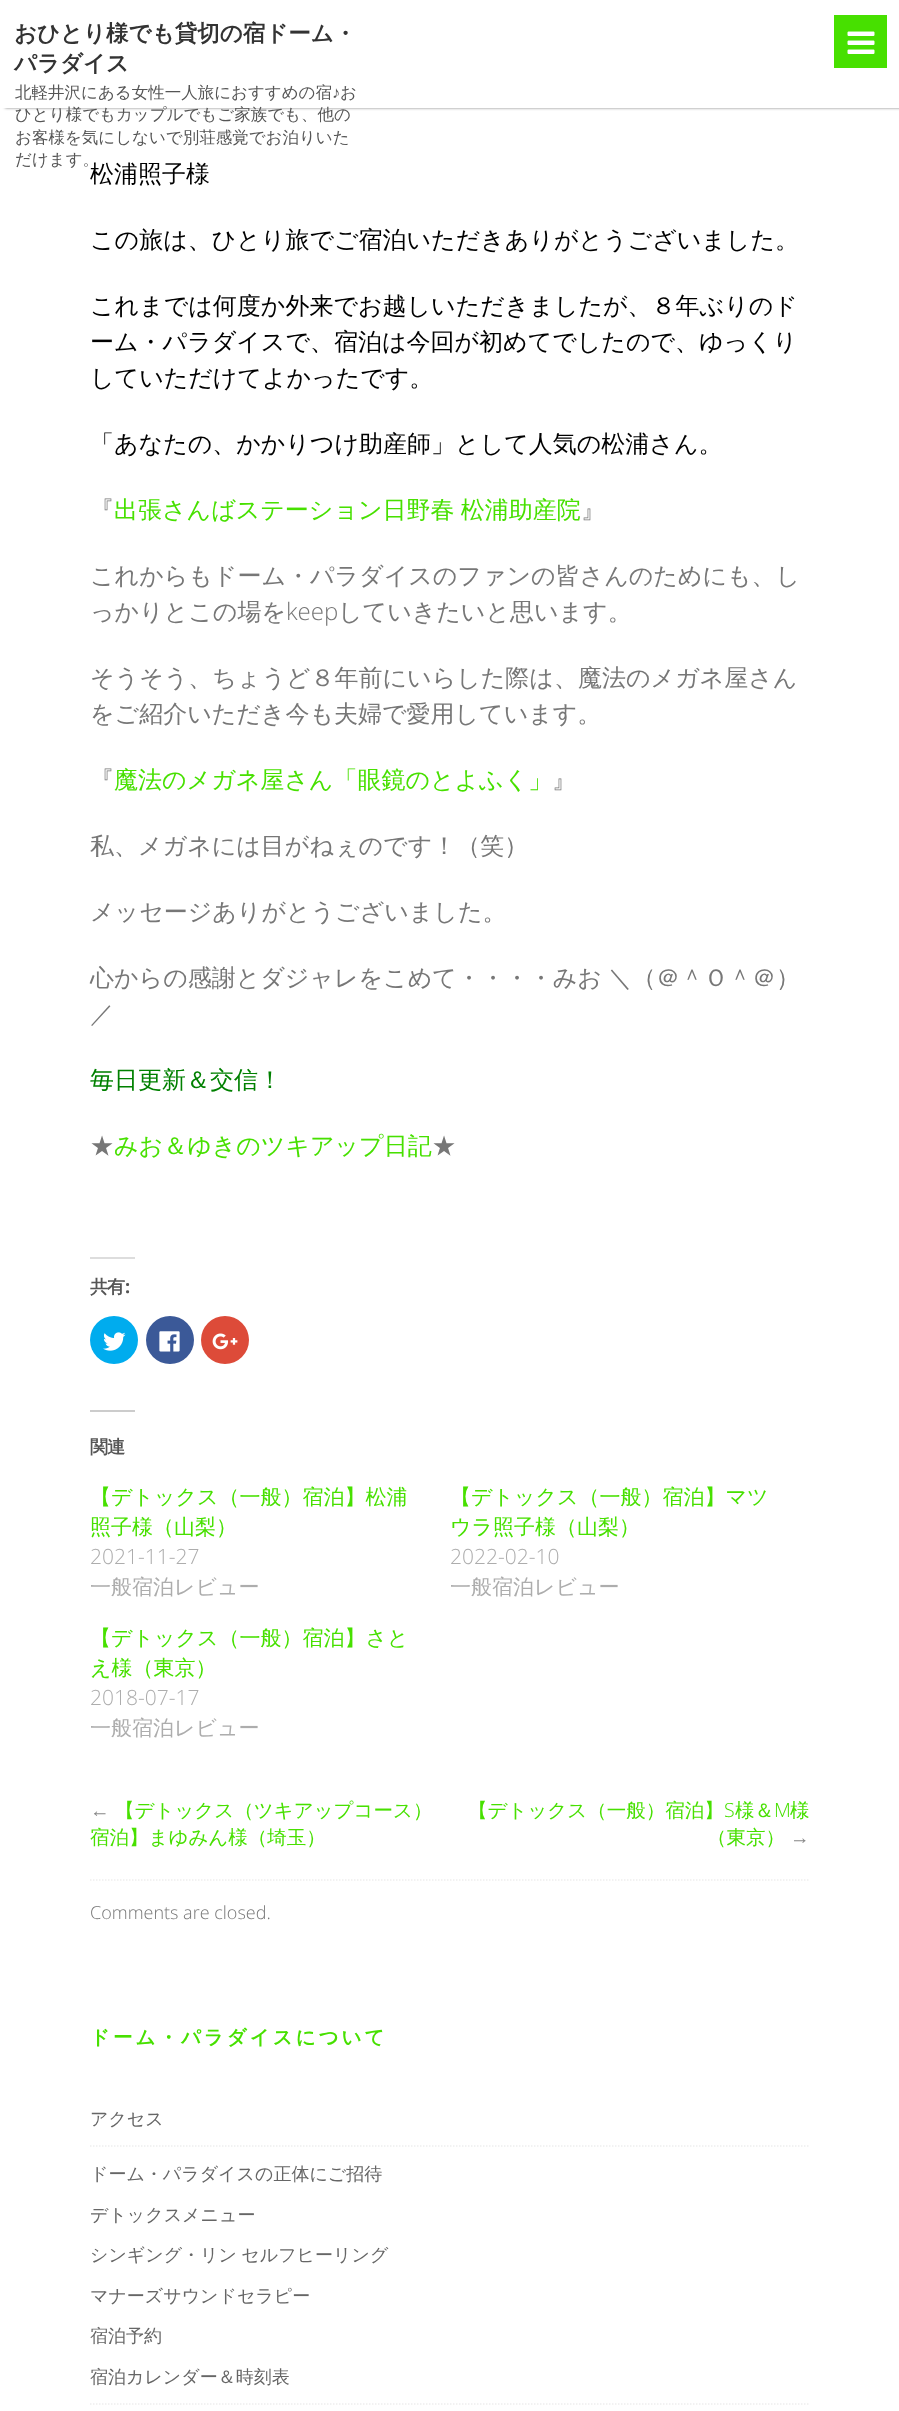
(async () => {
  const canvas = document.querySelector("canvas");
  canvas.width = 899;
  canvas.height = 2411;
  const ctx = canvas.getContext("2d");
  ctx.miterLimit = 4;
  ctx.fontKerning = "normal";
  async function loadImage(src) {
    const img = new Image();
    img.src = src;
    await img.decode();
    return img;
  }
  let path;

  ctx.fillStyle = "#ffffff";
  ctx.fillRect(0, 0, 899, 2411);
  ctx.fillStyle = "rgba(0, 0, 0, 0.5)";
  ctx.filter = "blur(1.5px)";
  ctx.beginPath();
  ctx.rect(5, 0, 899, 108);
  ctx.fill();
  ctx.filter = "none";
  ctx.fillStyle = "#ffffff";
  ctx.fillRect(2, 0, 897, 108);
  ctx.fillStyle = "#47e000";
  ctx.fillRect(834, 15, 53, 53);
  ctx.drawImage(await loadImage("img/1.png"), 847, 31, 28, 23);
  ctx.fillStyle = "#dddddd";
  ctx.fillRect(90, 1257, 45, 2);
  ctx.fillStyle = "#00acee";
  ctx.beginPath();
  ctx.arc(114, 1340, 24, 0, Math.PI * 2);
  ctx.fill();
  ctx.drawImage(await loadImage("img/2.png"), 103, 1332, 23, 19);
  ctx.fillStyle = "#3b5998";
  ctx.beginPath();
  ctx.arc(170, 1340, 24, 0, Math.PI * 2);
  ctx.fill();
  ctx.drawImage(await loadImage("img/3.png"), 159, 1331, 21, 21);
  ctx.fillStyle = "#dd4b39";
  ctx.beginPath();
  ctx.arc(225, 1340, 24, 0, Math.PI * 2);
  ctx.fill();
  ctx.drawImage(await loadImage("img/4.png"), 212, 1333, 26, 17);
  ctx.fillStyle = "#cccccc";
  ctx.fillRect(90, 1410, 45, 2);
  path = new Path2D("M90 1880H810");
  ctx.strokeStyle = "#eeeeee";
  ctx.lineWidth = 1.5;
  ctx.setLineDash([1.5, 1.5]);
  ctx.stroke(path);
  path = new Path2D("M90 2146H810");
  ctx.stroke(path);
  path = new Path2D("M90 2404H810");
  ctx.stroke(path);
  ctx.font = "bold 22.5px WenQuanYi Zen Hei";
  ctx.fillStyle = "#333333";
  ctx.fillText("おひとり様でも貸切の宿ドーム・", 14, 41);
  ctx.fillText("パラダイス", 14, 71);
  ctx.font = "500 16.5px WenQuanYi Zen Hei";
  ctx.fillStyle = "#555555";
  ctx.fillText("北軽井沢にある女性一人旅におすすめの宿", 15, 98);
  ctx.font = "16.5px Liberation Sans";
  ctx.fillText("♪", 332, 98);
  ctx.font = "500 16.5px WenQuanYi Zen Hei";
  for (const [text, x, y] of [
    ["お", 340, 98],
    ["ひとり様でもカップルでもご家族でも、他の", 15, 120],
    ["お客様を気にしないで別荘感覚でお泊りいた", 15, 143],
    ["だけます。", 15, 165],
  ]) {
    ctx.fillText(text, x, y);
  }
  ctx.font = "500 24px WenQuanYi Zen Hei";
  ctx.fillStyle = "#000000";
  for (const [text, x, y] of [
    ["松浦照子様", 90, 182],
    ["この旅は、ひとり旅でご宿泊いただきありがとうございました。", 90, 248],
    ["これまでは何度か外来でお越しいただきましたが、８年ぶりのド", 90, 314],
    ["ーム・パラダイスで、宿泊は今回が初めてでしたので、ゆっくり", 90, 350],
    ["していただけてよかったです。", 90, 386],
    ["「あなたの、かかりつけ助産師」として人気の松浦さん。", 90, 452],
  ]) {
    ctx.fillText(text, x, y);
  }
  ctx.fillStyle = "#777777";
  ctx.fillText("『", 90, 518);
  ctx.wordSpacing = "-1px";
  ctx.fillStyle = "#47e000";
  ctx.fillText("出張さんばステーション日野春 松浦助産院", 114, 518);
  ctx.wordSpacing = "0px";
  ctx.fillStyle = "#777777";
  for (const [text, x, y] of [
    ["』", 581, 518],
    ["これからもドーム・パラダイスのファンの皆さんのためにも、し", 90, 584],
    ["っかりとこの場を", 90, 620],
  ]) {
    ctx.fillText(text, x, y);
  }
  ctx.font = "300 24px Open Sans";
  ctx.fillText("keep", 286, 620);
  ctx.font = "500 24px WenQuanYi Zen Hei";
  for (const [text, x, y] of [
    ["していきたいと思います。", 338, 620],
    ["そうそう、ちょうど８年前にいらした際は、魔法のメガネ屋さん", 90, 686],
    ["をご紹介いただき今も夫婦で愛用しています。", 90, 722],
    ["『", 90, 788],
  ]) {
    ctx.fillText(text, x, y);
  }
  ctx.fillStyle = "#47e000";
  ctx.fillText("魔法のメガネ屋さん「眼鏡のとよふく」", 114, 788);
  ctx.fillStyle = "#777777";
  for (const [text, x, y] of [
    ["』", 552, 788],
    ["私、メガネには目がねぇのです！（笑）", 90, 854],
    ["メッセージありがとうございました。", 90, 920],
  ]) {
    ctx.fillText(text, x, y);
  }
  ctx.wordSpacing = "-1px";
  ctx.fillText("心からの感謝とダジャレをこめて・・・・みお ＼（＠＾Ｏ＾＠）", 90, 986);
  ctx.wordSpacing = "0px";
  ctx.fillText("／", 90, 1022);
  ctx.fillStyle = "#008000";
  ctx.fillText("毎日更新＆交信！", 90, 1088);
  ctx.fillStyle = "#777777";
  ctx.fillText("★", 90, 1154);
  ctx.fillStyle = "#47e000";
  ctx.fillText("みお＆ゆきのツキアップ日記", 114, 1154);
  ctx.fillStyle = "#777777";
  ctx.fillText("★", 432, 1154);
  ctx.letterSpacing = "-1px";
  ctx.font = "bold 18px WenQuanYi Zen Hei";
  ctx.fillStyle = "#555555";
  ctx.fillText("共有", 90, 1293);
  ctx.font = "bold 18px Open Sans";
  ctx.fillText(":", 125, 1293);
  ctx.font = "bold 18px WenQuanYi Zen Hei";
  ctx.fillText("関連", 90, 1453);
  ctx.letterSpacing = "0px";
  ctx.font = "500 21px WenQuanYi Zen Hei";
  ctx.fillStyle = "#47e000";
  ctx.fillText("【デトックス（一般）宿泊】松浦", 90, 1504);
  ctx.fillText("照子様（山梨）", 90, 1534);
  ctx.font = "300 21px Open Sans";
  ctx.fillStyle = "#adadad";
  ctx.fillText("2021-11-27", 90, 1564);
  ctx.font = "500 21px WenQuanYi Zen Hei";
  ctx.fillText("一般宿泊レビュー", 90, 1594);
  ctx.fillStyle = "#47e000";
  ctx.fillText("【デトックス（一般）宿泊】マツ", 450, 1504);
  ctx.fillText("ウラ照子様（山梨）", 450, 1534);
  ctx.font = "300 21px Open Sans";
  ctx.fillStyle = "#adadad";
  ctx.fillText("2022-02-10", 450, 1564);
  ctx.font = "500 21px WenQuanYi Zen Hei";
  ctx.fillText("一般宿泊レビュー", 450, 1594);
  ctx.fillStyle = "#47e000";
  ctx.fillText("【デトックス（一般）宿泊】さと", 90, 1645);
  ctx.fillText("え様（東京）", 90, 1675);
  ctx.font = "300 21px Open Sans";
  ctx.fillStyle = "#adadad";
  ctx.fillText("2018-07-17", 90, 1705);
  ctx.font = "500 21px WenQuanYi Zen Hei";
  ctx.fillText("一般宿泊レビュー", 90, 1735);
  ctx.font = "19.5px Liberation Sans";
  ctx.fillStyle = "#888888";
  ctx.fillText("←", 90, 1817);
  ctx.font = "500 19.5px WenQuanYi Zen Hei";
  ctx.fillStyle = "#47e000";
  for (const [text, x, y] of [
    ["【デトックス（ツキアップコース）", 115, 1817],
    ["宿泊】まゆみん様（埼玉）", 90, 1844],
    ["【デトックス（一般）宿泊】", 468, 1817],
  ]) {
    ctx.fillText(text, x, y);
  }
  ctx.font = "300 19.5px Open Sans";
  ctx.fillText("S", 724, 1817);
  ctx.font = "500 19.5px WenQuanYi Zen Hei";
  ctx.fillText("様＆", 735, 1817);
  ctx.font = "300 19.5px Open Sans";
  ctx.fillText("M", 774, 1817);
  ctx.font = "500 19.5px WenQuanYi Zen Hei";
  ctx.fillText("様", 790, 1817);
  ctx.fillText("（東京）", 707, 1844);
  ctx.font = "19.5px Liberation Sans";
  ctx.fillStyle = "#888888";
  ctx.fillText("→", 790, 1844);
  ctx.font = "300 18px Open Sans";
  ctx.fillStyle = "#777777";
  ctx.fillText("Comments are closed.", 90, 1919);
  ctx.letterSpacing = "3px";
  ctx.font = "bold 19.5px WenQuanYi Zen Hei";
  ctx.fillStyle = "#47e000";
  ctx.fillText("ドーム・パラダイスについて", 90, 2044);
  ctx.letterSpacing = "0px";
  ctx.font = "500 18px WenQuanYi Zen Hei";
  ctx.fillStyle = "#666666";
  for (const [text, x, y] of [
    ["アクセス", 90, 2125],
    ["ドーム・パラダイスの正体にご招待", 90, 2180],
    ["デトックスメニュー", 90, 2221],
  ]) {
    ctx.fillText(text, x, y);
  }
  ctx.wordSpacing = "-1px";
  ctx.fillText("シンギング・リン セルフヒーリング", 90, 2261);
  ctx.wordSpacing = "0px";
  for (const [text, x, y] of [
    ["マナーズサウンドセラピー", 90, 2302],
    ["宿泊予約", 90, 2342],
    ["宿泊カレンダー＆時刻表", 90, 2383],
  ]) {
    ctx.fillText(text, x, y);
  }
})();
